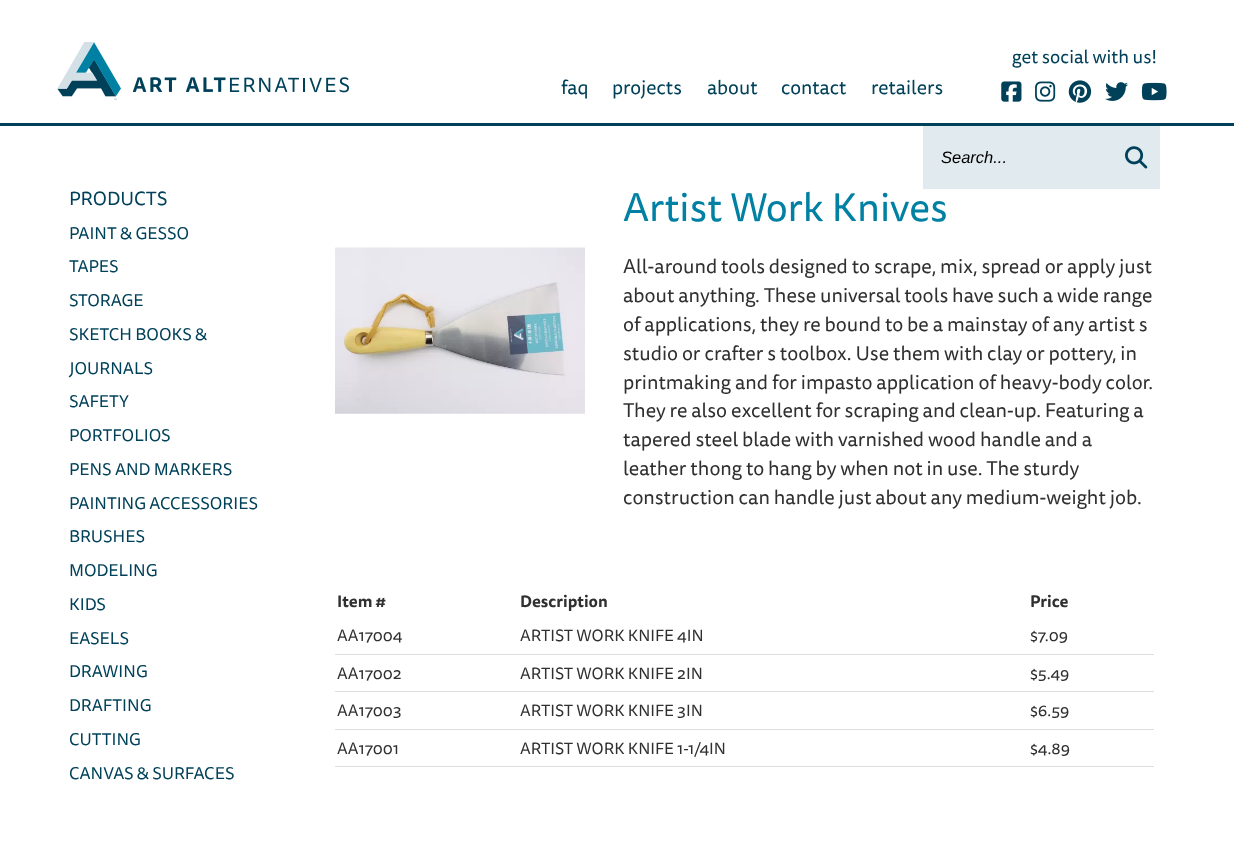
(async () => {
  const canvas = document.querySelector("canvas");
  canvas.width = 1234;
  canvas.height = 844;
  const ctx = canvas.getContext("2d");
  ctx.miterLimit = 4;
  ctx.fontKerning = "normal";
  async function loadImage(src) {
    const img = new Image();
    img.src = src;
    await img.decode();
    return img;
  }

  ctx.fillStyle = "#ffffff";
  ctx.fillRect(0, 0, 1234, 844);
  ctx.fillStyle = "#004159";
  ctx.fillRect(0, 123, 1234, 3);
  ctx.drawImage(await loadImage("img/1.png"), 57, 42, 292, 58);
  ctx.drawImage(await loadImage("img/2.png"), 1001, 81, 21, 21);
  ctx.drawImage(await loadImage("img/3.png"), 1035, 81, 21, 21);
  ctx.drawImage(await loadImage("img/4.png"), 1068, 80, 24, 23);
  ctx.drawImage(await loadImage("img/5.png"), 1105, 82, 23, 19);
  ctx.drawImage(await loadImage("img/6.png"), 1141, 82, 26, 19);
  ctx.fillStyle = "#e1eaee";
  ctx.fillRect(923, 126, 237, 63);
  ctx.drawImage(await loadImage("img/7.png"), 1125, 146, 23, 23);
  ctx.drawImage(await loadImage("img/8.png"), 335, 247, 250, 167);
  for (const [x, y, w, h, color] of [
    [335, 654, 819, 1, "#dedede"],
    [335, 691, 819, 1, "#dedede"],
    [335, 729, 819, 1, "#dedede"],
    [335, 766, 819, 1, "#dedede"],
  ]) {
    ctx.fillStyle = color;
    ctx.fillRect(x, y, w, h);
  }
  ctx.font = "18.5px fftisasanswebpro";
  ctx.fillStyle = "#004159";
  ctx.fillText("get social with us!", 1012, 63);
  ctx.font = "19.5px fftisasanswebpro";
  for (const [text, x, y] of [
    ["faq", 561, 94],
    ["projects", 612, 94],
    ["about", 707, 94],
    ["contact", 781, 94],
    ["retailers", 871, 94],
  ]) {
    ctx.fillText(text, x, y);
  }
  ctx.font = "italic 16.5px Liberation Sans";
  ctx.fillStyle = "#000000";
  ctx.fillText("Search...", 941, 163);
  ctx.font = "19px fftisasanswebpro";
  ctx.fillStyle = "#004159";
  ctx.fillText("PRODUCTS", 69, 205);
  ctx.font = "16.9px fftisasanswebpro";
  for (const [text, x, y] of [
    ["PAINT & GESSO", 69, 239],
    ["TAPES", 69, 272],
    ["STORAGE", 69, 306],
    ["SKETCH BOOKS &", 69, 340],
    ["JOURNALS", 69, 374],
    ["SAFETY", 69, 407],
    ["PORTFOLIOS", 69, 441],
    ["PENS AND MARKERS", 69, 475],
    ["PAINTING ACCESSORIES", 69, 509],
    ["BRUSHES", 69, 542],
    ["MODELING", 69, 576],
    ["KIDS", 69, 610],
    ["EASELS", 69, 644],
    ["DRAWING", 69, 677],
    ["DRAFTING", 69, 711],
    ["CUTTING", 69, 745],
    ["CANVAS & SURFACES", 69, 779],
  ]) {
    ctx.fillText(text, x, y);
  }
  ctx.font = "39.75px fftisasanswebpro";
  ctx.fillStyle = "#0081a3";
  ctx.fillText("Artist Work Knives", 623, 221);
  ctx.font = "19.85px fftisasanswebpro";
  ctx.fillStyle = "#303030";
  for (const [text, x, y] of [
    ["All-around tools designed to scrape, mix, spread or apply just", 623, 273],
    ["about anything. These universal tools have such a wide range", 623, 302],
    ["of applications, they re bound to be a mainstay of any artist s", 623, 331],
    ["studio or crafter s toolbox. Use them with clay or pottery, in", 623, 360],
    ["printmaking and for impasto application of heavy-body color.", 623, 389],
    ["They re also excellent for scraping and clean-up. Featuring a", 623, 417],
    ["tapered steel blade with varnished wood handle and a", 623, 446],
    ["leather thong to hang by when not in use. The sturdy", 623, 475],
    ["construction can handle just about any medium-weight job.", 623, 504],
  ]) {
    ctx.fillText(text, x, y);
  }
  ctx.font = "bold 16.25px fftisasanswebpro";
  for (const [text, x, y] of [
    ["Item #", 337, 607],
    ["Description", 520, 607],
    ["Price", 1030, 607],
  ]) {
    ctx.fillText(text, x, y);
  }
  ctx.font = "16.25px fftisasanswebpro";
  for (const [text, x, y] of [
    ["AA17004", 337, 641],
    ["ARTIST WORK KNIFE 4IN", 520, 641],
    ["$7.09", 1030, 641],
    ["AA17002", 337, 679],
    ["ARTIST WORK KNIFE 2IN", 520, 679],
    ["$5.49", 1030, 679],
    ["AA17003", 337, 716],
    ["ARTIST WORK KNIFE 3IN", 520, 716],
    ["$6.59", 1030, 716],
    ["AA17001", 337, 754],
    ["ARTIST WORK KNIFE 1-1/4IN", 520, 754],
    ["$4.89", 1030, 754],
  ]) {
    ctx.fillText(text, x, y);
  }
})();
